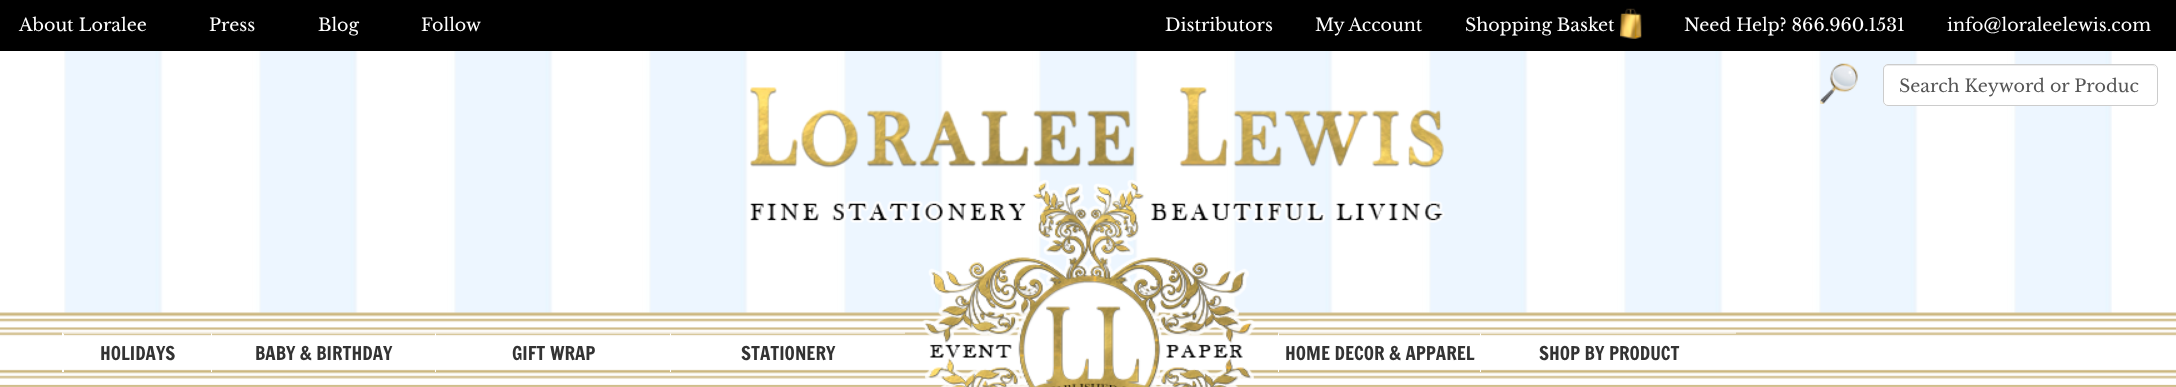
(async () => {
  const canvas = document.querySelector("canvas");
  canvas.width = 2176;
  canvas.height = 387;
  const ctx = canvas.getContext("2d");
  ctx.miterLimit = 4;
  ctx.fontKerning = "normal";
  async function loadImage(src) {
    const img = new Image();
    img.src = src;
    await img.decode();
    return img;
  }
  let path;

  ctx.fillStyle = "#ffffff";
  ctx.fillRect(0, 0, 2176, 387);
  ctx.drawImage(await loadImage("img/1.png"), 64, 51, 2048, 262);
  ctx.drawImage(await loadImage("img/2.png"), 0, 312, 2176, 75);
  ctx.fillStyle = "#000000";
  ctx.fillRect(0, 0, 2176, 51);
  ctx.drawImage(await loadImage("img/3.png"), 1620, 8, 22, 31);
  ctx.drawImage(await loadImage("img/4.png"), 750, 87, 695, 300);
  ctx.drawImage(await loadImage("img/5.png"), 1820, 63, 38, 41);
  ctx.fillStyle = "#ffffff";
  ctx.beginPath();
  ctx.roundRect(1883, 64, 275, 42, 5);
  ctx.fill();
  ctx.fillStyle = "#ececec";
  path = new Path2D("M1888 66H2152C2155 66 2156 68 2156 70C2156 67 2155 65 2152 65H1888C1885 65 1884 67 1884 70C1884 68 1885 66 1888 66Z");
  ctx.fill(path);
  ctx.beginPath();
  ctx.roundRect(1883.5, 64.5, 274, 41, 4.5);
  ctx.strokeStyle = "#cccccc";
  ctx.stroke();
  ctx.fillStyle = "rgba(255, 255, 255, 0.5)";
  path = new Path2D("M62 332H211V334H64Z");
  ctx.fill(path);
  ctx.fillStyle = "#ffffff";
  path = new Path2D("M62 372V332L64 334V372Z");
  ctx.fill(path);
  ctx.fillStyle = "rgba(255, 255, 255, 0.5)";
  path = new Path2D("M211 332H435V334H212Z");
  ctx.fill(path);
  ctx.fillStyle = "#ffffff";
  path = new Path2D("M211 372V332L212 334V372Z");
  ctx.fill(path);
  ctx.fillStyle = "rgba(255, 255, 255, 0.5)";
  path = new Path2D("M435 332H670V334H436Z");
  ctx.fill(path);
  ctx.fillStyle = "#ffffff";
  path = new Path2D("M435 372V332L436 334V372Z");
  ctx.fill(path);
  ctx.fillStyle = "rgba(255, 255, 255, 0.5)";
  path = new Path2D("M670 332H905V334H671Z");
  ctx.fill(path);
  ctx.fillStyle = "#ffffff";
  path = new Path2D("M670 372V332L671 334V372Z");
  ctx.fill(path);
  ctx.fillStyle = "rgba(255, 255, 255, 0.5)";
  path = new Path2D("M1278 332H1480V334H1279Z");
  ctx.fill(path);
  ctx.fillStyle = "#ffffff";
  path = new Path2D("M1278 372V332L1279 334V372Z");
  ctx.fill(path);
  ctx.fillStyle = "rgba(255, 255, 255, 0.5)";
  path = new Path2D("M1480 332H1736V334H1481Z");
  ctx.fill(path);
  ctx.fillStyle = "#ffffff";
  path = new Path2D("M1480 372V332L1481 334V372Z");
  ctx.fill(path);
  ctx.font = "17.5px Libre Baskerville";
  for (const [text, x, y] of [
    ["About Loralee", 19, 31],
    ["Press", 209, 31],
    ["Blog", 318, 31],
    ["Follow", 421, 31],
    ["Distributors", 1165, 31],
    ["My Account", 1315, 31],
    ["Shopping Basket", 1465, 31],
    ["Need Help? 866.960.1531", 1684, 31],
    ["info@loraleelewis.com", 1947, 31],
  ]) {
    ctx.fillText(text, x, y);
  }
  ctx.fillStyle = "#555555";
  ctx.fillText("Search Keyword or Produc", 1899, 92);
  ctx.font = "18.75px Francois One";
  ctx.fillStyle = "#333333";
  for (const [text, x, y] of [
    ["HOLIDAYS", 100, 360],
    ["BABY & BIRTHDAY", 255, 360],
    ["GIFT WRAP", 512, 360],
    ["STATIONERY", 741, 360],
    ["HOME DECOR & APPAREL", 1285, 360],
    ["SHOP BY PRODUCT", 1539, 360],
  ]) {
    ctx.fillText(text, x, y);
  }
})();
